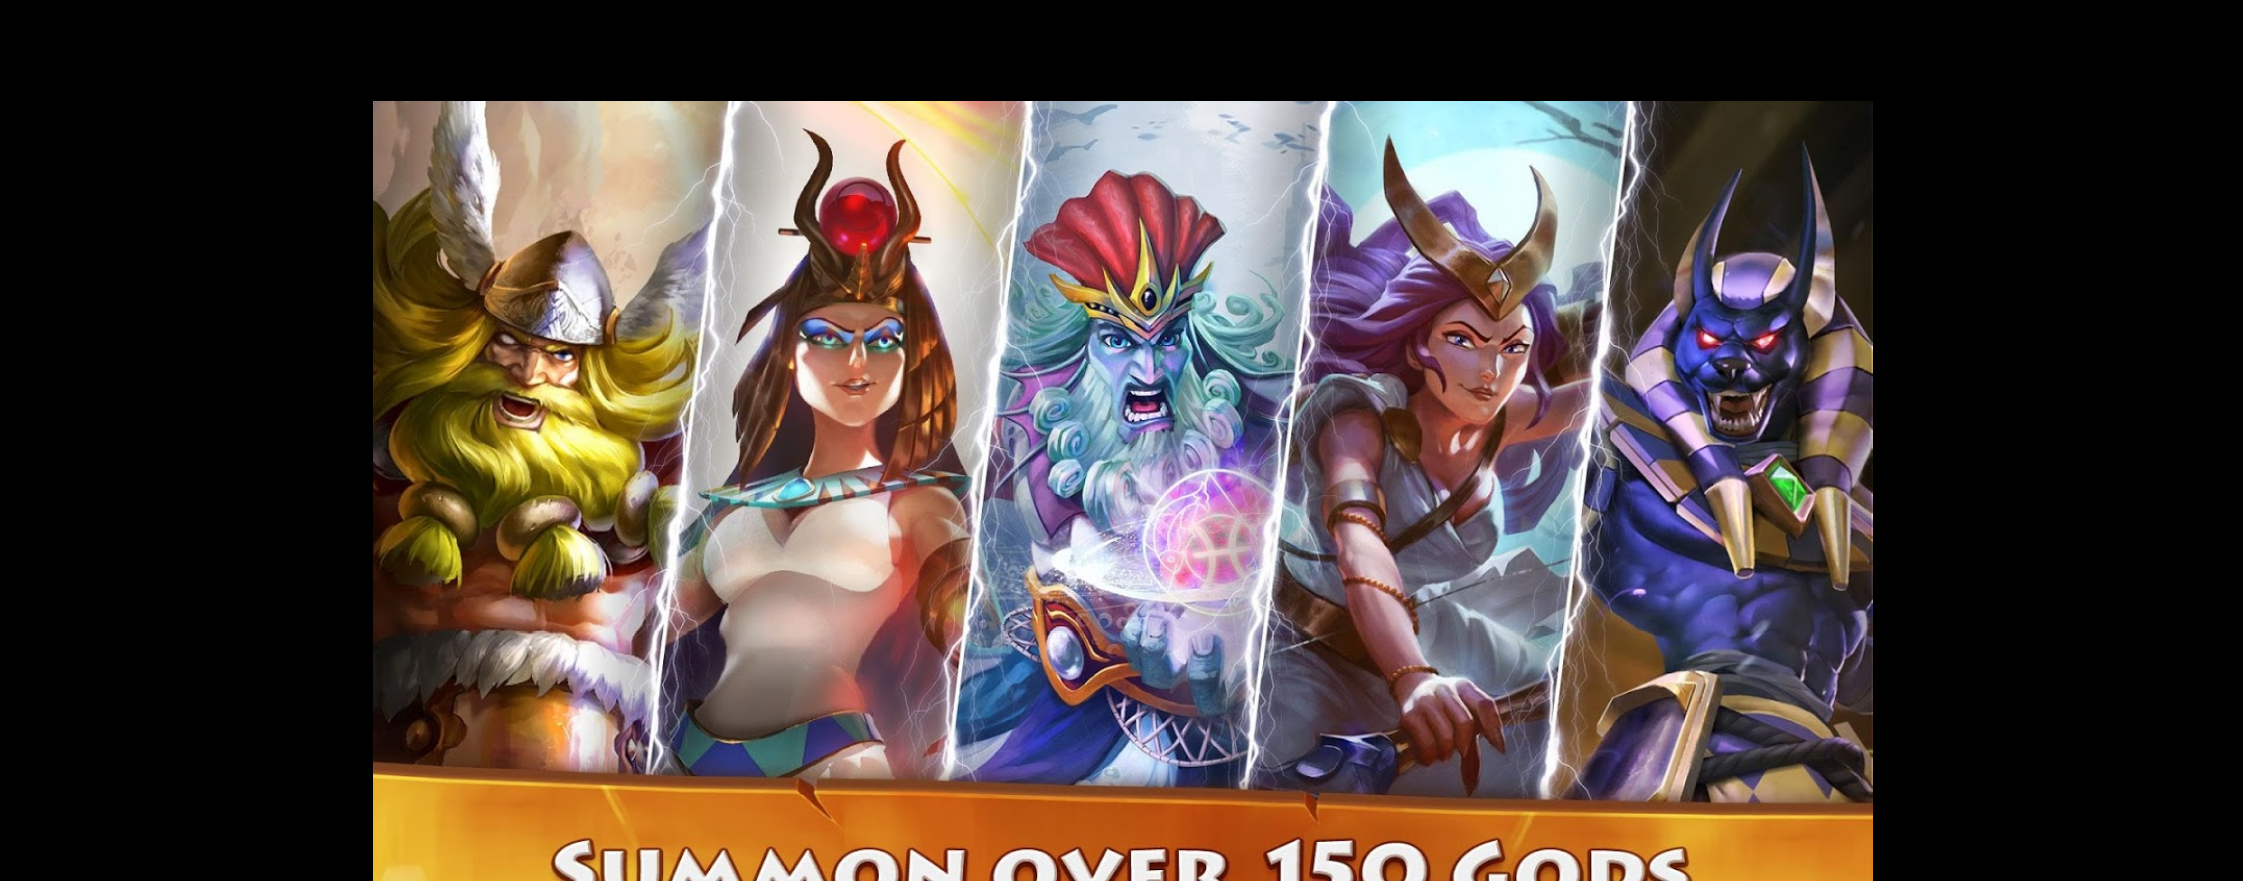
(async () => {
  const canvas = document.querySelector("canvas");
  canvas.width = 2243;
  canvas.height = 881;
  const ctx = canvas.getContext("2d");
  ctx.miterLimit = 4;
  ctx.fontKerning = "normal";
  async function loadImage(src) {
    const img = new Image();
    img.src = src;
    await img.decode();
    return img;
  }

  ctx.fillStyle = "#000000";
  ctx.fillRect(0, 0, 2243, 881);
  ctx.drawImage(await loadImage("img/1.png"), 373, 101, 1500, 780);
})();
